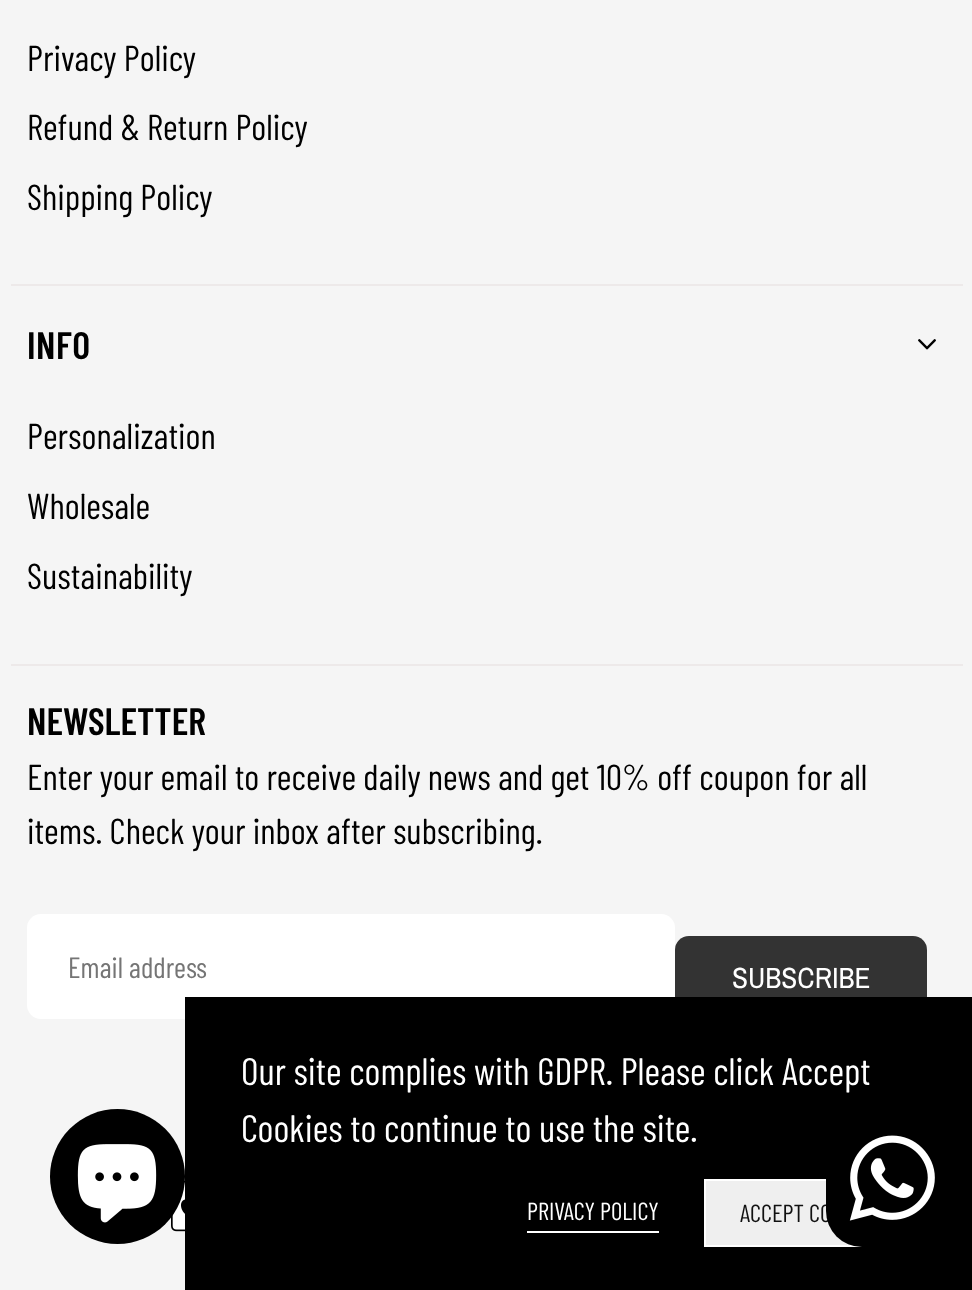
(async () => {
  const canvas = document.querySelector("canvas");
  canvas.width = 972;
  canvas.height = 1290;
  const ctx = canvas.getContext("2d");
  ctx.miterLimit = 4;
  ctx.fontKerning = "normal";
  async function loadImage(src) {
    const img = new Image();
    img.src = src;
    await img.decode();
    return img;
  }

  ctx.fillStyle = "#f5f5f5";
  ctx.fillRect(0, 0, 972, 1290);
  ctx.fillStyle = "#ede9e9";
  ctx.fillRect(11, 284, 952, 2);
  ctx.drawImage(await loadImage("img/1.png"), 918, 339, 18, 11);
  ctx.fillRect(11, 664, 952, 2);
  ctx.fillStyle = "#ffffff";
  ctx.beginPath();
  ctx.roundRect(27, 914, 648, 105, 14);
  ctx.fill();
  ctx.fillStyle = "#333333";
  ctx.beginPath();
  ctx.roundRect(675, 936, 252, 83, 14);
  ctx.fill();
  ctx.drawImage(await loadImage("img/2.png"), 171, 1180, 14, 52);
  ctx.fillStyle = "#000000";
  ctx.beginPath();
  ctx.arc(117.5, 1176.5, 67.5, 0, Math.PI * 2);
  ctx.fill();
  ctx.drawImage(await loadImage("img/3.png"), 77, 1144, 80, 79);
  for (const [x, y, w, h, color] of [
    [185, 997, 787, 293, "#000000"],
    [527, 1231, 132, 2, "#ffffff"],
    [706, 1181, 145, 64, "#efefef"],
  ]) {
    ctx.fillStyle = color;
    ctx.fillRect(x, y, w, h);
  }
  ctx.strokeStyle = "#ffffff";
  ctx.lineWidth = 2;
  ctx.strokeRect(705, 1180, 210, 66);
  ctx.font = "36px Barlow Condensed";
  ctx.fillStyle = "#000000";
  for (const [text, x, y] of [
    ["Privacy Policy", 27, 71],
    ["Refund & Return Policy", 27, 140],
    ["Shipping Policy", 27, 210],
  ]) {
    ctx.fillText(text, x, y);
  }
  ctx.letterSpacing = "0.5px";
  ctx.font = "600 38.25px Barlow Condensed";
  ctx.fillText("INFO", 27, 359);
  ctx.letterSpacing = "0px";
  ctx.font = "36px Barlow Condensed";
  for (const [text, x, y] of [
    ["Personalization", 27, 449],
    ["Wholesale", 27, 519],
    ["Sustainability", 27, 589],
  ]) {
    ctx.fillText(text, x, y);
  }
  ctx.font = "600 38.25px Barlow Condensed";
  ctx.fillText("NEWSLETTER", 27, 735);
  ctx.font = "36px Barlow Condensed";
  ctx.fillText("Enter your email to receive daily news and get 10% off coupon for all", 27, 790);
  ctx.fillText("items. Check your inbox after subscribing.", 27, 844);
  ctx.font = "29.25px Barlow Condensed";
  ctx.fillStyle = "#757575";
  ctx.fillText("Email address", 68, 978);
  ctx.font = "29.25px Archivo Narrow";
  ctx.fillStyle = "#ffffff";
  ctx.fillText("SUBSCRIBE", 732, 988);
  ctx.font = "38.25px Barlow Condensed";
  ctx.fillText("Our site complies with GDPR. Please click Accept", 241, 1085);
  ctx.fillText("Cookies to continue to use the site.", 241, 1142);
  ctx.font = "24.75px Barlow Condensed";
  ctx.fillText("PRIVACY POLICY", 527, 1220);
  ctx.fillStyle = "#111111";
  ctx.fillText("ACCEPT CO", 740, 1222);
  ctx.fillStyle = "#000000";
  ctx.beginPath();
  ctx.roundRect(826, 1112, 135, 135, 36);
  ctx.fill();
  ctx.drawImage(await loadImage("img/4.png"), 849, 1135, 86, 86);
})();
